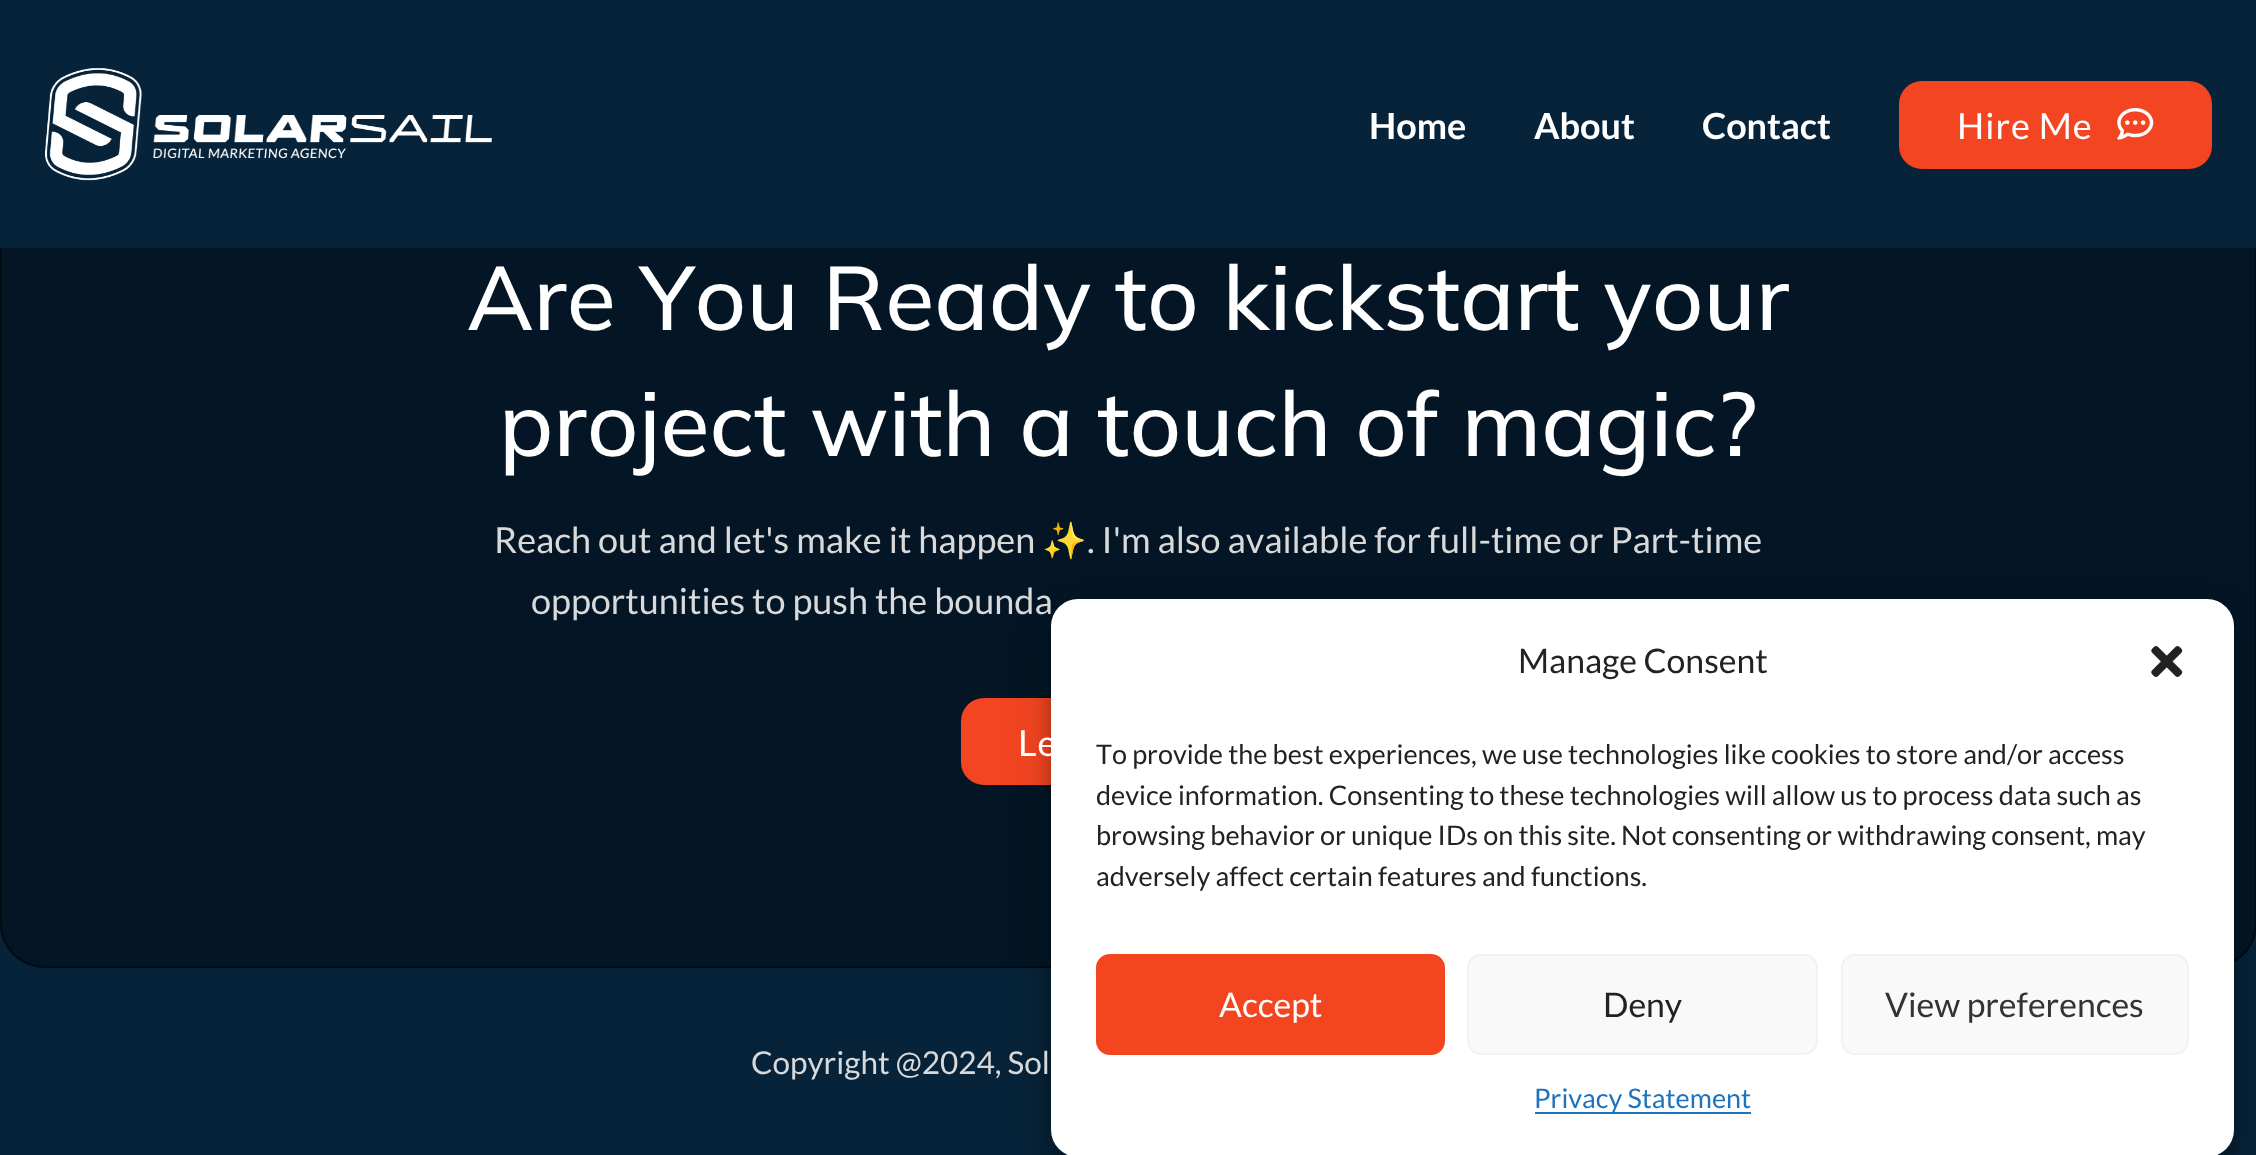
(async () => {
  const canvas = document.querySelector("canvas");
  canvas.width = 2256;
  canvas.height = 1155;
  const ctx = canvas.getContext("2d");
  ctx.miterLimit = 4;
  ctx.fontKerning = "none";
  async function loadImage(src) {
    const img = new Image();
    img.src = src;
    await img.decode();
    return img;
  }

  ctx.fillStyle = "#072339";
  ctx.fillRect(0, 0, 2256, 1155);
  ctx.fillStyle = "#041625";
  ctx.beginPath();
  ctx.roundRect(0, 52, 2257, 916, 45);
  ctx.fill();
  ctx.beginPath();
  ctx.roundRect(1, 53, 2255, 914, 44);
  ctx.strokeStyle = "rgba(0, 0, 0, 0.5)";
  ctx.lineWidth = 2;
  ctx.stroke();
  ctx.fillStyle = "#072339";
  ctx.fillRect(0, 52, 2256, 196);
  ctx.drawImage(await loadImage("img/1.png"), 45, 68, 447, 113);
  ctx.fillStyle = "#f34521";
  ctx.beginPath();
  ctx.roundRect(1900, 82, 311, 86, 22);
  ctx.fill();
  ctx.strokeStyle = "#f34521";
  ctx.stroke();
  ctx.drawImage(await loadImage("img/2.png"), 2117, 108, 37, 32);
  ctx.beginPath();
  ctx.roundRect(962, 699, 333, 85, 22);
  ctx.fill();
  ctx.stroke();
  ctx.fillStyle = "rgba(0, 0, 0, 0.23)";
  ctx.filter = "blur(7px)";
  ctx.beginPath();
  ctx.roundRect(1051, 612, 1183, 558, 27);
  ctx.fill();
  ctx.filter = "none";
  ctx.fillStyle = "rgba(0, 0, 0, 0.19)";
  ctx.filter = "blur(22.5px)";
  ctx.beginPath();
  ctx.roundRect(1051, 621, 1183, 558, 27);
  ctx.fill();
  ctx.filter = "none";
  ctx.fillStyle = "#ffffff";
  ctx.beginPath();
  ctx.roundRect(1051, 599, 1183, 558, 27);
  ctx.fill();
  ctx.drawImage(await loadImage("img/3.png"), 2151, 646, 32, 31);
  ctx.fillStyle = "#f3451f";
  ctx.beginPath();
  ctx.roundRect(1097, 955, 347, 99, 13);
  ctx.fill();
  ctx.strokeStyle = "#f3451f";
  ctx.stroke();
  ctx.fillStyle = "#f9f9f9";
  ctx.beginPath();
  ctx.roundRect(1468, 955, 349, 99, 13);
  ctx.fill();
  ctx.strokeStyle = "#f2f2f2";
  ctx.stroke();
  ctx.beginPath();
  ctx.roundRect(1842, 955, 346, 99, 13);
  ctx.fill();
  ctx.stroke();
  ctx.fillStyle = "#1e73be";
  ctx.fillRect(1535, 1112, 216, 2);
  ctx.font = "bold 36px Lato";
  ctx.fillStyle = "#ffffff";
  for (const [text, x, y] of [
    ["Home", 1369, 139],
    ["About", 1534, 139],
    ["Contact", 1702, 139],
  ]) {
    ctx.fillText(text, x, y);
  }
  ctx.letterSpacing = "1px";
  ctx.font = "36px Lato";
  ctx.fillText("Hire Me", 1957, 139);
  ctx.letterSpacing = "0px";
  ctx.font = "200 90px Mulish";
  ctx.fillText("Are You Ready to kickstart your", 467, 330);
  ctx.fillText("project with a touch of magic?", 499, 456);
  ctx.font = "36px Lato";
  ctx.fillStyle = "#d9d9d9";
  ctx.fillText("Reach out and let's make it happen", 494, 553);
  ctx.font = "36px Noto Color Emoji";
  ctx.fillText("✨", 1042, 553);
  ctx.font = "36px Lato";
  ctx.fillText(". I'm also available for full-time or Part-time", 1087, 553);
  ctx.fillText("opportunities to push the bounda", 531, 614);
  ctx.letterSpacing = "1px";
  ctx.fillStyle = "#ffffff";
  ctx.fillText("Le", 1018, 756);
  ctx.letterSpacing = "0px";
  ctx.font = "31.5px Lato";
  ctx.fillStyle = "#d9d9d9";
  ctx.fillText("Copyright @2024, Sol", 751, 1074);
  ctx.font = "33.75px Lato";
  ctx.fillStyle = "#222222";
  ctx.fillText("Manage Consent", 1518, 673);
  ctx.font = "27px Lato";
  for (const [text, x, y] of [
    ["To provide the best experiences, we use technologies like cookies to store and/or", 1096, 764],
    ["access", 2048, 764],
    ["device information. Consenting to these technologies will allow us to process data such as", 1096, 805],
    ["browsing behavior or unique IDs on this site. Not consenting or withdrawing consent, may", 1096, 845],
    ["adversely affect certain features and functions.", 1096, 886],
  ]) {
    ctx.fillText(text, x, y);
  }
  ctx.font = "33.75px Lato";
  ctx.fillStyle = "#ffffff";
  ctx.fillText("Accept", 1219, 1017);
  ctx.fillStyle = "#222222";
  ctx.fillText("Deny", 1603, 1017);
  ctx.fillStyle = "#333333";
  ctx.fillText("View preferences", 1885, 1017);
  ctx.font = "27px Lato";
  ctx.fillStyle = "#1e73be";
  ctx.fillText("Privacy Statement", 1534, 1108);
})();
